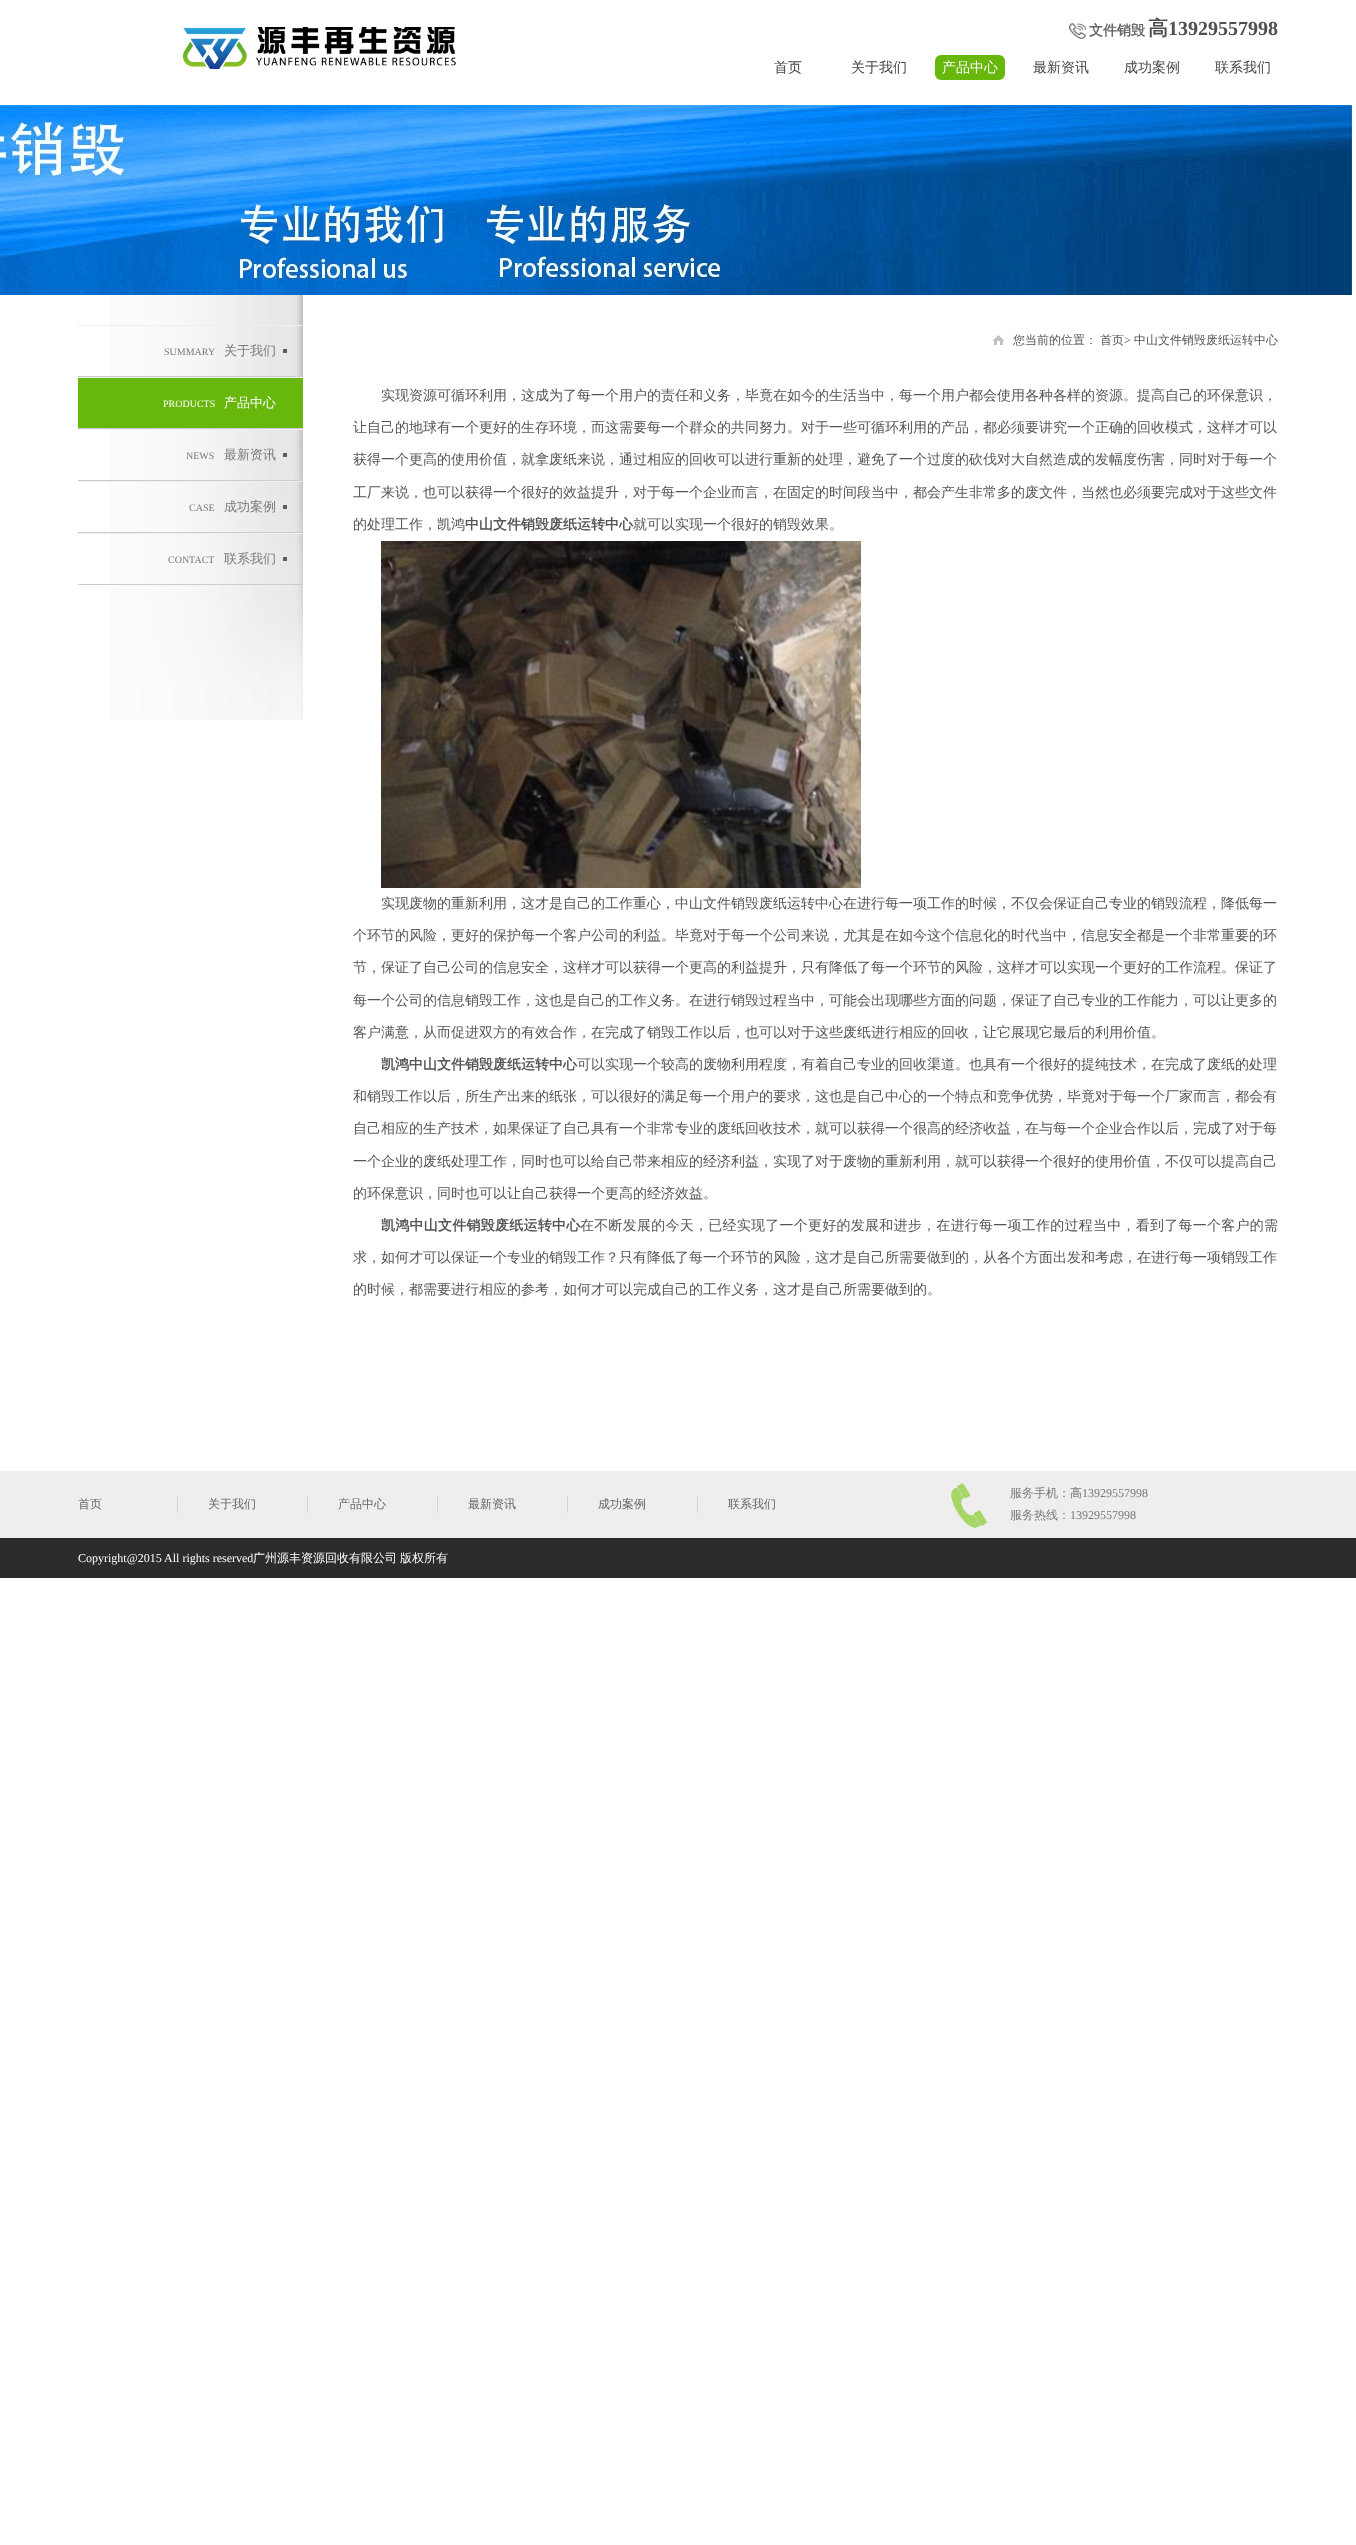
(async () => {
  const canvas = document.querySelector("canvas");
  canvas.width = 1356;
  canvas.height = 2545;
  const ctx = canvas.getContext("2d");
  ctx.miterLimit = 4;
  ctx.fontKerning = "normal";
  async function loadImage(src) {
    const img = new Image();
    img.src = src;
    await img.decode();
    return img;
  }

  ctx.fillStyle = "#ffffff";
  ctx.fillRect(0, 0, 1356, 2545);
  ctx.drawImage(await loadImage("img/1.png"), 182, 27, 274, 42);
  ctx.drawImage(await loadImage("img/2.png"), 1069, 23, 17, 16);
  ctx.fillStyle = "#68b70c";
  ctx.beginPath();
  ctx.roundRect(935, 55, 70, 25, 6);
  ctx.fill();
  ctx.drawImage(await loadImage("img/3.png"), 0, 105, 1352, 190);
  ctx.drawImage(await loadImage("img/4.png"), 110, 295, 193, 425);
  for (const [x, y, w, h, color] of [
    [283, 349, 4, 4, "#5e5e5e"],
    [78, 325, 225, 1, "#efefef"],
    [78, 376, 225, 1, "#cccccc"],
    [78, 378, 225, 50, "#68b70c"],
    [78, 377, 225, 1, "#efefef"],
    [78, 428, 225, 1, "#cccccc"],
    [283, 453, 4, 4, "#5e5e5e"],
    [78, 429, 225, 1, "#efefef"],
    [78, 480, 225, 1, "#cccccc"],
    [283, 505, 4, 4, "#5e5e5e"],
    [78, 481, 225, 1, "#efefef"],
    [78, 532, 225, 1, "#cccccc"],
    [283, 557, 4, 4, "#5e5e5e"],
    [78, 533, 225, 1, "#efefef"],
    [78, 584, 225, 1, "#cccccc"],
  ]) {
    ctx.fillStyle = color;
    ctx.fillRect(x, y, w, h);
  }
  ctx.drawImage(await loadImage("img/5.png"), 993, 335, 11, 10);
  ctx.drawImage(await loadImage("img/6.png"), 381, 541, 480, 347);
  ctx.fillStyle = "#eeeeee";
  ctx.fillRect(0, 1471, 1356, 67);
  ctx.drawImage(await loadImage("img/7.png"), 177, 1496, 1, 17);
  ctx.drawImage(await loadImage("img/7.png"), 307, 1496, 1, 17);
  ctx.drawImage(await loadImage("img/7.png"), 437, 1496, 1, 17);
  ctx.drawImage(await loadImage("img/7.png"), 567, 1496, 1, 17);
  ctx.drawImage(await loadImage("img/7.png"), 697, 1496, 1, 17);
  ctx.drawImage(await loadImage("img/8.png"), 951, 1483, 36, 45);
  ctx.fillStyle = "#2c2c2c";
  ctx.fillRect(0, 1538, 1356, 40);
  ctx.font = "bold 14px WenQuanYi Zen Hei";
  ctx.fillStyle = "#666666";
  ctx.fillText("文件销毁", 1089, 35);
  ctx.font = "bold 20px WenQuanYi Zen Hei";
  ctx.fillStyle = "#4f4f4f";
  ctx.fillText("高", 1148, 35);
  ctx.font = "bold 20px Liberation Serif";
  ctx.fillText("13929557998", 1168, 35);
  ctx.font = "500 14px WenQuanYi Zen Hei";
  ctx.fillStyle = "#444444";
  ctx.fillText("首页", 774, 72);
  ctx.fillText("关于我们", 851, 72);
  ctx.fillStyle = "#ffffff";
  ctx.fillText("产品中心", 942, 72);
  ctx.fillStyle = "#444444";
  for (const [text, x, y] of [
    ["最新资讯", 1033, 72],
    ["成功案例", 1124, 72],
    ["联系我们", 1215, 72],
  ]) {
    ctx.fillText(text, x, y);
  }
  ctx.font = "10px Liberation Serif";
  ctx.fillStyle = "#787878";
  ctx.fillText("SUMMARY", 164, 355);
  ctx.font = "500 13px WenQuanYi Zen Hei";
  ctx.fillText("关于我们", 224, 355);
  ctx.font = "10px Liberation Serif";
  ctx.fillStyle = "#ffffff";
  ctx.fillText("PRODUCTS", 163, 407);
  ctx.font = "500 13px WenQuanYi Zen Hei";
  ctx.fillText("产品中心", 224, 407);
  ctx.font = "10px Liberation Serif";
  ctx.fillStyle = "#787878";
  ctx.fillText("NEWS", 186, 459);
  ctx.font = "500 13px WenQuanYi Zen Hei";
  ctx.fillText("最新资讯", 224, 459);
  ctx.font = "10px Liberation Serif";
  ctx.fillText("CASE", 189, 511);
  ctx.font = "500 13px WenQuanYi Zen Hei";
  ctx.fillText("成功案例", 224, 511);
  ctx.font = "10px Liberation Serif";
  ctx.fillText("CONTACT", 168, 563);
  ctx.font = "500 13px WenQuanYi Zen Hei";
  ctx.fillText("联系我们", 224, 563);
  ctx.font = "500 12px WenQuanYi Zen Hei";
  ctx.fillStyle = "#555555";
  ctx.fillText("您当前的位置：", 1013, 344);
  ctx.fillText("首页", 1100, 344);
  ctx.font = "12px Liberation Serif";
  ctx.fillText(">", 1124, 344);
  ctx.font = "500 12px WenQuanYi Zen Hei";
  ctx.fillText("中山文件销毁废纸运转中心", 1134, 344);
  ctx.font = "500 14px WenQuanYi Zen Hei";
  for (const [text, x, y] of [
    ["实现资源可循环利用，这成为了每一个用户的责任和义务，毕竟在如今的生活当中，每一个用户都会使用各种各样的资源。提高自己的环保意识，", 381, 400],
    ["让自己的地球有一个更好的生存环境，而这需要每一个群众的共同努力。对于一些可循环利用的产品，都必须要讲究一个正确的回收模式，这样才可以", 353, 432],
    ["获得一个更高的使用价值，就拿废纸来说，通过相应的回收可以进行重新的处理，避免了一个过度的砍伐对大自然造成的发幅度伤害，同时对于每一个", 353, 464],
    ["工厂来说，也可以获得一个很好的效益提升，对于每一个企业而言，在固定的时间段当中，都会产生非常多的废文件，当然也必须要完成对于这些文件", 353, 497],
    ["的处理工作，凯鸿", 353, 529],
  ]) {
    ctx.fillText(text, x, y);
  }
  ctx.font = "bold 14px WenQuanYi Zen Hei";
  ctx.fillText("中山文件销毁废纸运转中心", 465, 529);
  ctx.font = "500 14px WenQuanYi Zen Hei";
  for (const [text, x, y] of [
    ["就可以实现一个很好的销毁效果。", 633, 529],
    ["实现废物的重新利用，这才是自己的工作重心，中山文件销毁废纸运转中心在进行每一项工作的时候，不仅会保证自己专业的销毁流程，降低每一", 381, 908],
    ["个环节的风险，更好的保护每一个客户公司的利益。毕竟对于每一个公司来说，尤其是在如今这个信息化的时代当中，信息安全都是一个非常重要的环", 353, 940],
    ["节，保证了自己公司的信息安全，这样才可以获得一个更高的利益提升，只有降低了每一个环节的风险，这样才可以实现一个更好的工作流程。保证了", 353, 972],
    ["每一个公司的信息销毁工作，这也是自己的工作义务。在进行销毁过程当中，可能会出现哪些方面的问题，保证了自己专业的工作能力，可以让更多的", 353, 1005],
    ["客户满意，从而促进双方的有效合作，在完成了销毁工作以后，也可以对于这些废纸进行相应的回收，让它展现它最后的利用价值。", 353, 1037],
  ]) {
    ctx.fillText(text, x, y);
  }
  ctx.font = "bold 14px WenQuanYi Zen Hei";
  ctx.fillText("凯鸿中山文件销毁废纸运转中心", 381, 1069);
  ctx.font = "500 14px WenQuanYi Zen Hei";
  for (const [text, x, y] of [
    ["可以实现一个较高的废物利用程度，有着自己专业的回收渠道。也具有一个很好的提纯技术，在完成了废纸的处理", 577, 1069],
    ["和销毁工作以后，所生产出来的纸张，可以很好的满足每一个用户的要求，这也是自己中心的一个特点和竞争优势，毕竟对于每一个厂家而言，都会有", 353, 1101],
    ["自己相应的生产技术，如果保证了自己具有一个非常专业的废纸回收技术，就可以获得一个很高的经济收益，在与每一个企业合作以后，完成了对于每", 353, 1133],
    ["一个企业的废纸处理工作，同时也可以给自己带来相应的经济利益，实现了对于废物的重新利用，就可以获得一个很好的使用价值，不仅可以提高自己", 353, 1166],
    ["的环保意识，同时也可以让自己获得一个更高的经济效益。", 353, 1198],
  ]) {
    ctx.fillText(text, x, y);
  }
  ctx.letterSpacing = "0.25px";
  ctx.font = "bold 14px WenQuanYi Zen Hei";
  ctx.fillText("凯鸿中山文件销毁废纸运转中心", 381, 1230);
  ctx.font = "500 14px WenQuanYi Zen Hei";
  ctx.fillText("在不断发展的今天，已经实现了一个更好的发展和进步，在进行每一项工作的过程当中，看到了每一个客户的需", 580, 1230);
  ctx.letterSpacing = "0px";
  ctx.fillText("求，如何才可以保证一个专业的销毁工作？只有降低了每一个环节的风险，这才是自己所需要做到的，从各个方面出发和考虑，在进行每一项销毁工作", 353, 1262);
  ctx.fillText("的时候，都需要进行相应的参考，如何才可以完成自己的工作义务，这才是自己所需要做到的。", 353, 1294);
  ctx.font = "500 12px WenQuanYi Zen Hei";
  ctx.fillStyle = "#666666";
  for (const [text, x, y] of [
    ["首页", 78, 1508],
    ["关于我们", 208, 1508],
    ["产品中心", 338, 1508],
    ["最新资讯", 468, 1508],
    ["成功案例", 598, 1508],
    ["联系我们", 728, 1508],
  ]) {
    ctx.fillText(text, x, y);
  }
  ctx.fillStyle = "#787878";
  ctx.fillText("服务手机：高", 1010, 1497);
  ctx.font = "12px Liberation Serif";
  ctx.fillText("13929557998", 1082, 1497);
  ctx.font = "500 12px WenQuanYi Zen Hei";
  ctx.fillText("服务热线：", 1010, 1519);
  ctx.font = "12px Liberation Serif";
  ctx.fillText("13929557998", 1070, 1519);
  ctx.fillStyle = "#ffffff";
  ctx.fillText("Copyright@2015 All rights reserved", 78, 1562);
  ctx.font = "500 12px WenQuanYi Zen Hei";
  ctx.fillText("广州源丰资源回收有限公司", 253, 1562);
  ctx.fillText("版权所有", 400, 1562);
})();
